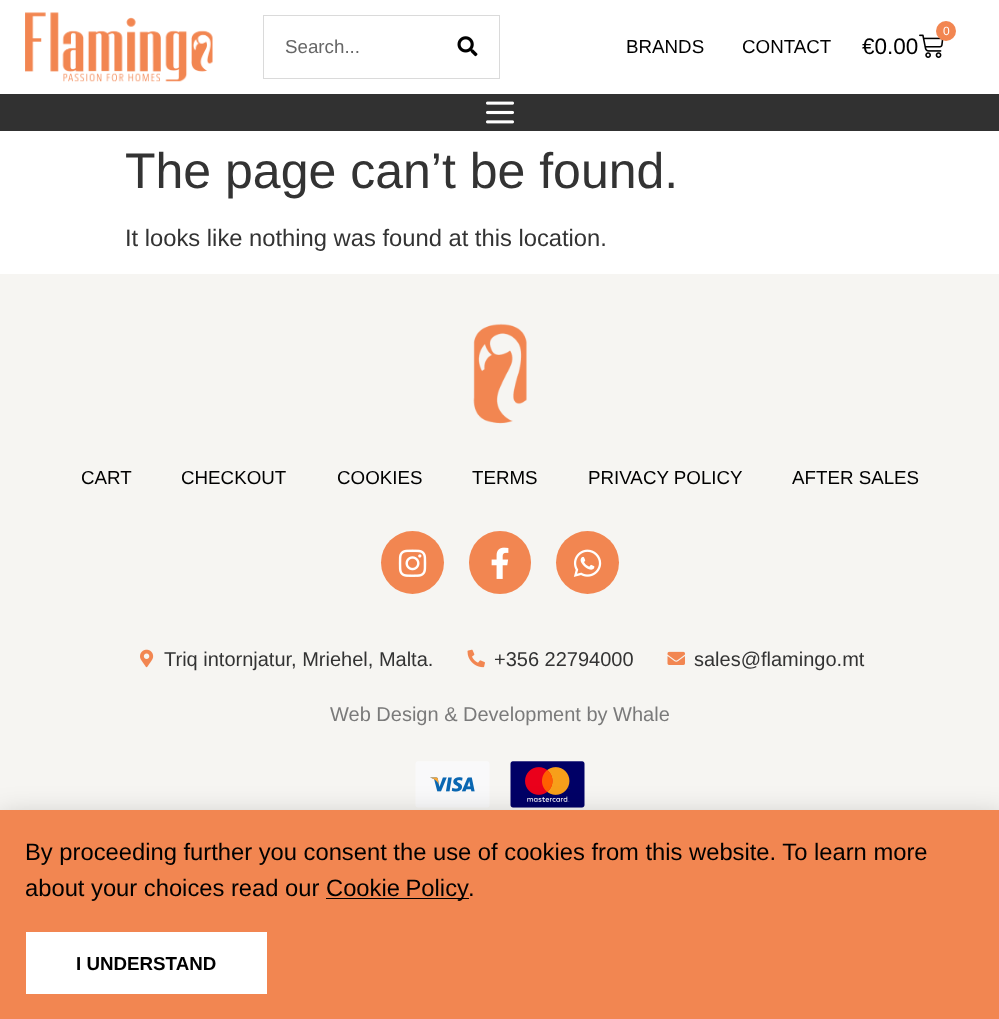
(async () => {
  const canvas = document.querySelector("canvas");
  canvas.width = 999;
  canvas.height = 1019;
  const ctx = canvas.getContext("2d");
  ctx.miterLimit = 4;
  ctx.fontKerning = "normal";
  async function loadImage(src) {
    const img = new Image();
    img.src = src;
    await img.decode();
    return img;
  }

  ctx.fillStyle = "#ffffff";
  ctx.fillRect(0, 0, 999, 1019);
  ctx.drawImage(await loadImage("img/1.png"), 25, 12, 188, 70);
  ctx.strokeStyle = "#dadada";
  ctx.strokeRect(263.5, 15.5, 236, 63);
  ctx.drawImage(await loadImage("img/2.png"), 457, 36, 21, 21);
  ctx.drawImage(await loadImage("img/3.png"), 919, 34, 25, 24);
  ctx.fillStyle = "#f28651";
  ctx.beginPath();
  ctx.arc(946, 31, 10, 0, Math.PI * 2);
  ctx.fill();
  ctx.fillStyle = "#313131";
  ctx.fillRect(0, 94, 999, 37);
  ctx.drawImage(await loadImage("img/4.png"), 486, 101, 28, 23);
  ctx.fillStyle = "#f6f5f2";
  ctx.fillRect(0, 274, 999, 536);
  ctx.drawImage(await loadImage("img/5.png"), 473, 323, 54, 101);
  ctx.fillStyle = "#f28651";
  ctx.beginPath();
  ctx.arc(412.5, 562.5, 31.5, 0, Math.PI * 2);
  ctx.fill();
  ctx.drawImage(await loadImage("img/6.png"), 398, 549, 29, 28);
  ctx.beginPath();
  ctx.roundRect(469, 531, 62, 63, 31);
  ctx.fill();
  ctx.drawImage(await loadImage("img/7.png"), 491, 547, 18, 32);
  ctx.beginPath();
  ctx.arc(587.5, 562.5, 31.5, 0, Math.PI * 2);
  ctx.fill();
  ctx.drawImage(await loadImage("img/8.png"), 573, 549, 29, 28);
  ctx.drawImage(await loadImage("img/9.png"), 140, 649, 14, 19);
  ctx.drawImage(await loadImage("img/10.png"), 467, 649, 18, 19);
  ctx.drawImage(await loadImage("img/11.png"), 667, 651, 18, 14);
  ctx.drawImage(await loadImage("img/12.png"), 415, 761, 75, 47);
  ctx.drawImage(await loadImage("img/13.png"), 510, 761, 75, 47);
  ctx.fillStyle = "rgba(0, 0, 0, 0.2)";
  ctx.filter = "blur(14.5px)";
  ctx.beginPath();
  ctx.rect(-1, 816, 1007, 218);
  ctx.fill();
  ctx.filter = "none";
  for (const [x, y, w, h, color] of [
    [0, 810, 999, 209, "#f28651"],
    [326, 898, 143, 1, "#000000"],
    [26, 932, 241, 62, "#ffffff"],
  ]) {
    ctx.fillStyle = color;
    ctx.fillRect(x, y, w, h);
  }
  ctx.font = "18.75px Liberation Sans";
  ctx.fillStyle = "#666666";
  ctx.fillText("Search...", 285, 53);
  ctx.fillStyle = "#000000";
  ctx.fillText("BRANDS", 626, 53);
  ctx.fillText("CONTACT", 742, 53);
  ctx.font = "12px Liberation Sans";
  ctx.fillStyle = "#ffffff";
  ctx.fillText("0", 943, 35);
  ctx.font = "22.5px Liberation Sans";
  ctx.fillStyle = "#000000";
  ctx.fillText("€0.00", 862, 54);
  ctx.font = "50px Liberation Sans";
  ctx.fillStyle = "#333333";
  ctx.fillText("The page can’t be found.", 125, 188);
  ctx.font = "23.75px Liberation Sans";
  ctx.fillText("It looks like nothing was found at this location.", 125, 246);
  ctx.font = "18.75px Liberation Sans";
  ctx.fillStyle = "#000000";
  for (const [text, x, y] of [
    ["CART", 81, 484],
    ["CHECKOUT", 181, 484],
    ["COOKIES", 337, 484],
    ["TERMS", 472, 484],
    ["PRIVACY POLICY", 588, 484],
    ["AFTER SALES", 792, 484],
  ]) {
    ctx.fillText(text, x, y);
  }
  ctx.font = "20px Liberation Sans";
  ctx.fillStyle = "#333333";
  for (const [text, x, y] of [
    ["Triq intornjatur, Mriehel, Malta.", 164, 666],
    ["+356 22794000", 494, 666],
    ["sales@flamingo.mt", 694, 666],
  ]) {
    ctx.fillText(text, x, y);
  }
  ctx.fillStyle = "#7a7a7a";
  ctx.fillText("Web Design & Development by Whale", 330, 721);
  ctx.font = "23.75px Liberation Sans";
  ctx.fillStyle = "#000000";
  ctx.fillText("By proceeding further you consent the use of cookies from this website. To learn more", 25, 860);
  ctx.fillText("about your choices read our", 25, 896);
  ctx.wordSpacing = "-1px";
  ctx.fillText("Cookie Policy", 326, 896);
  ctx.wordSpacing = "0px";
  ctx.fillText(".", 468, 896);
  ctx.font = "bold 18.75px Liberation Sans";
  ctx.fillText("I UNDERSTAND", 76, 970);
})();
